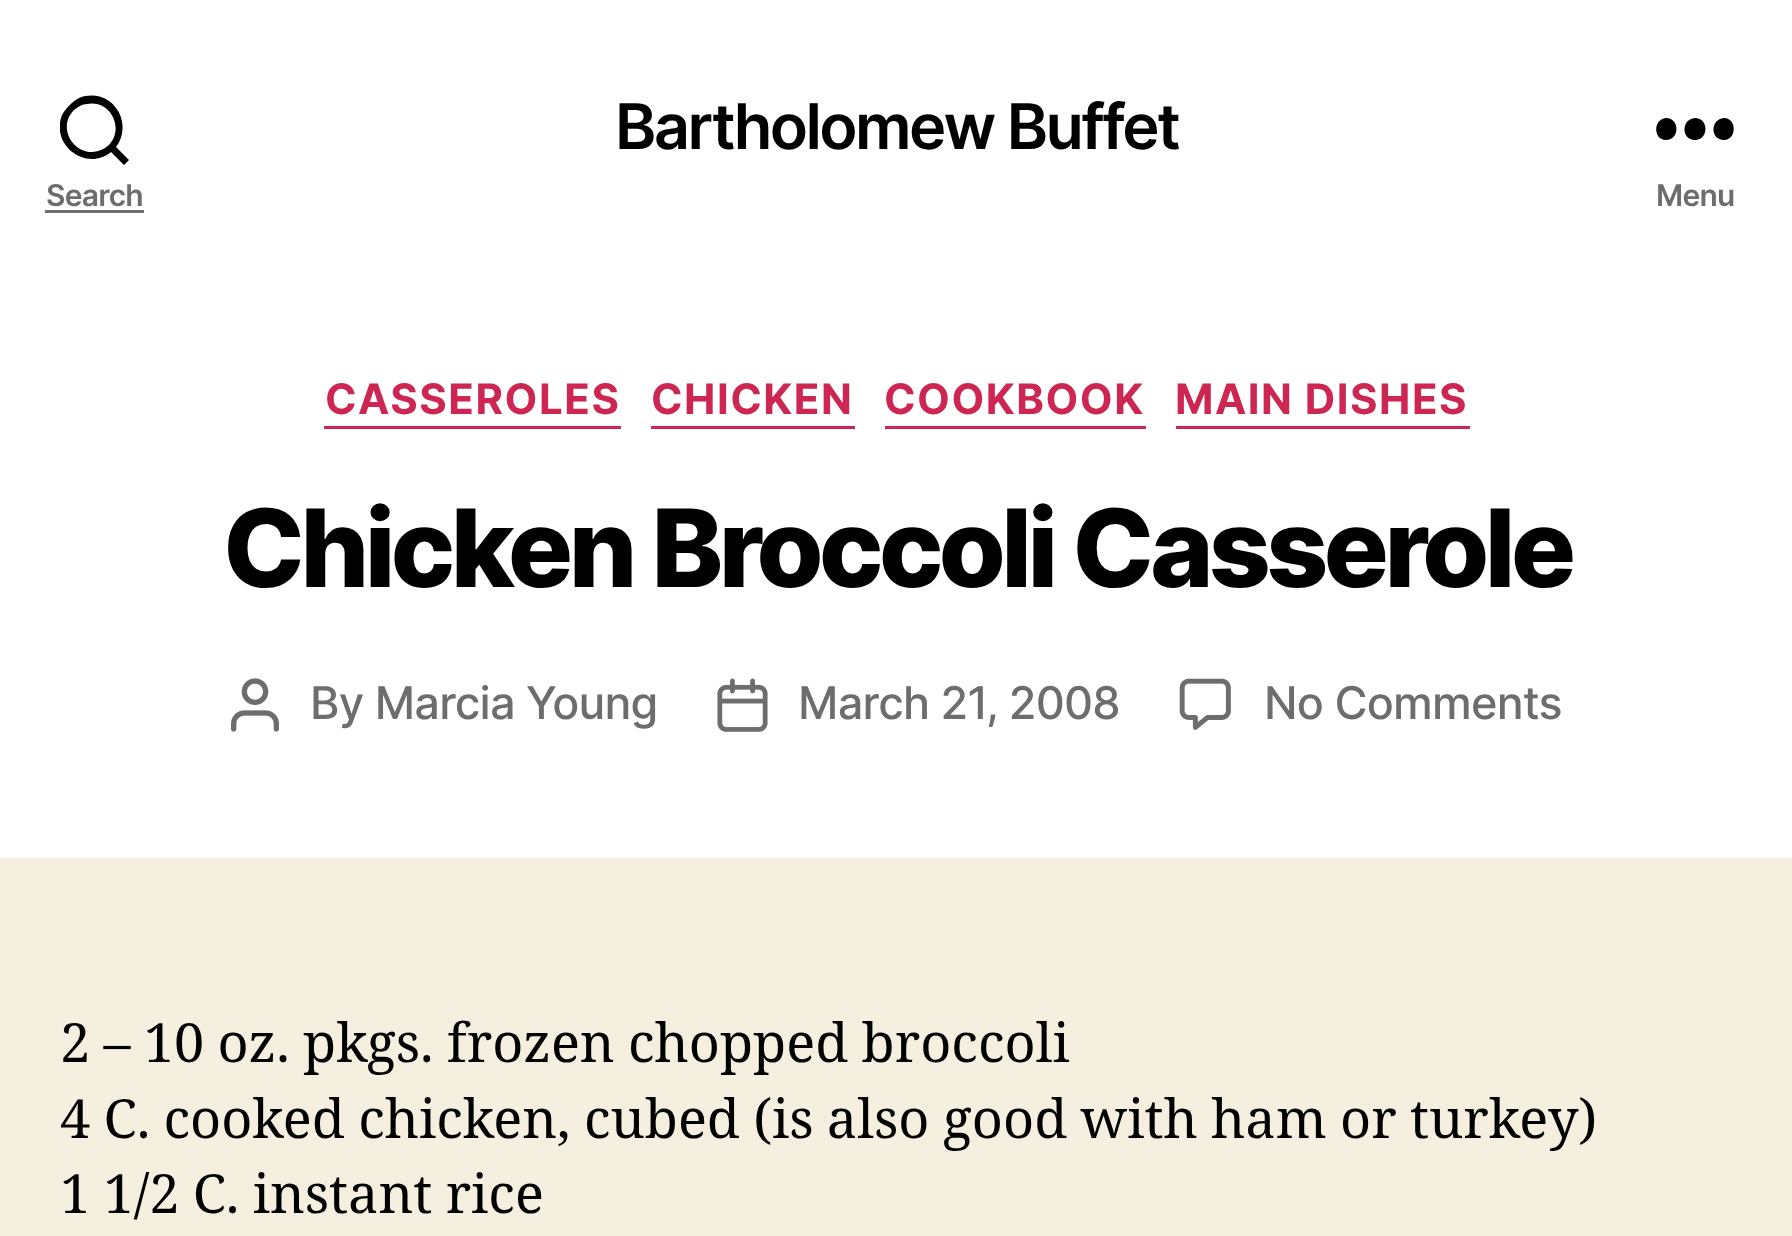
(async () => {
  const canvas = document.querySelector("canvas");
  canvas.width = 1792;
  canvas.height = 1236;
  const ctx = canvas.getContext("2d");
  ctx.miterLimit = 4;
  ctx.fontKerning = "normal";
  async function loadImage(src) {
    const img = new Image();
    img.src = src;
    await img.decode();
    return img;
  }
  let path;

  ctx.fillStyle = "#f5efe0";
  ctx.fillRect(0, 0, 1792, 1236);
  ctx.fillStyle = "#ffffff";
  ctx.fillRect(0, 0, 1792, 858);
  ctx.save();
  ctx.beginPath();
  ctx.rect(60, 93, 69, 75);
  ctx.clip();
  ctx.fillStyle = "#000000";
  path = new Path2D("M116 147L129 160L124 165L111 152C87 172 50 146 62 115C66 108 72 102 79 98C89 94 100 95 109 101C124 112 127 133 116 147ZM109 145C125 128 110 99 87 104C82 104 78 107 74 110C55 129 77 160 101 150C104 149 106 147 109 145Z");
  ctx.fill(path);
  ctx.restore();
  ctx.fillStyle = "#6d6d6d";
  ctx.fillRect(45, 210, 99, 3);
  ctx.fillStyle = "#000000";
  path = new Path2D("M1666 140C1653 140 1653 119 1666 118C1680 118 1680 140 1666 140ZM1695 140C1681 140 1681 119 1695 118C1709 118 1709 140 1695 140ZM1724 140C1710 140 1710 119 1724 118C1737 118 1737 140 1724 140Z");
  ctx.fill(path, "evenodd");
  for (const [x, y, w, h, color] of [
    [324, 426, 297, 3, "#cd2653"],
    [651, 426, 204, 3, "#cd2653"],
    [885, 426, 261, 3, "#cd2653"],
    [1176, 426, 294, 3, "#cd2653"],
  ]) {
    ctx.fillStyle = color;
    ctx.fillRect(x, y, w, h);
  }
  ctx.drawImage(await loadImage("img/1.png"), 231, 678, 48, 54);
  ctx.drawImage(await loadImage("img/2.png"), 717, 678, 51, 54);
  ctx.drawImage(await loadImage("img/3.png"), 1179, 678, 52, 52);
  ctx.letterSpacing = "-2.6px";
  ctx.font = "600 63px Inter";
  ctx.fillStyle = "#000000";
  ctx.fillText("Bartholomew Buffet", 615, 149);
  ctx.letterSpacing = "-0.75px";
  ctx.font = "600 30px Inter";
  ctx.fillStyle = "#6d6d6d";
  ctx.fillText("Search", 46, 206);
  ctx.fillText("Menu", 1656, 206);
  ctx.letterSpacing = "1.5px";
  ctx.font = "bold 42px Inter";
  ctx.fillStyle = "#cd2653";
  for (const [text, x, y] of [
    ["CASSEROLES", 325, 414],
    ["CHICKEN", 651, 414],
    ["COOKBOOK", 884, 414],
    ["MAIN DISHES", 1175, 414],
  ]) {
    ctx.fillText(text, x, y);
  }
  ctx.letterSpacing = "-4.5px";
  ctx.font = "800 108px Inter";
  ctx.fillStyle = "#000000";
  ctx.fillText("Chicken Broccoli Casserole", 223, 587);
  ctx.letterSpacing = "-0.75px";
  ctx.font = "500 45px Inter";
  ctx.fillStyle = "#6d6d6d";
  for (const [text, x, y] of [
    ["By Marcia Young", 310, 719],
    ["March 21, 2008", 798, 719],
    ["No Comments", 1264, 719],
  ]) {
    ctx.fillText(text, x, y);
  }
  ctx.letterSpacing = "0px";
  ctx.wordSpacing = "-0.75px";
  ctx.font = "54px Noto Serif";
  ctx.fillStyle = "#000000";
  for (const [text, x, y] of [
    ["2 – 10 oz. pkgs. frozen chopped broccoli", 60, 1062],
    ["4 C. cooked chicken, cubed (is also good with ham or turkey)", 60, 1138],
    ["1 1/2 C. instant rice", 60, 1213],
  ]) {
    ctx.fillText(text, x, y);
  }
})();
